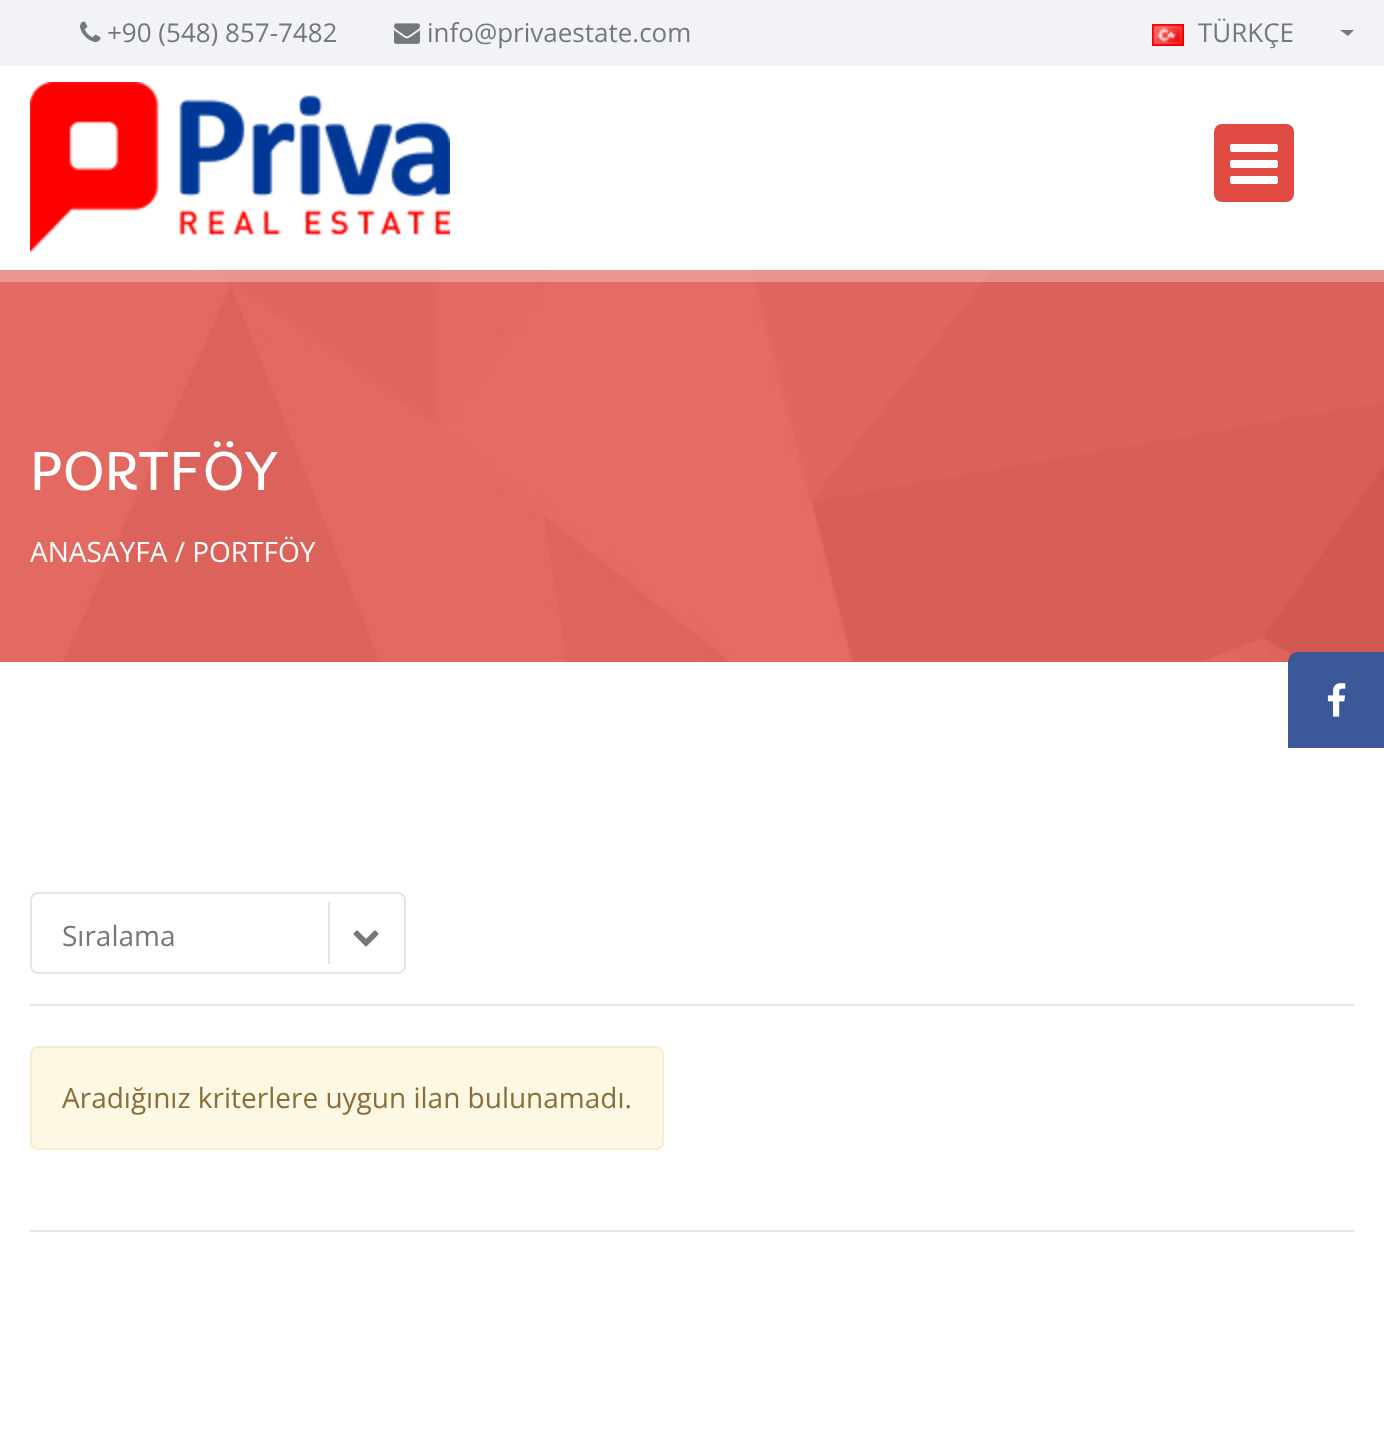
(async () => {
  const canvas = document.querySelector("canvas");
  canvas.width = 1384;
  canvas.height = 1430;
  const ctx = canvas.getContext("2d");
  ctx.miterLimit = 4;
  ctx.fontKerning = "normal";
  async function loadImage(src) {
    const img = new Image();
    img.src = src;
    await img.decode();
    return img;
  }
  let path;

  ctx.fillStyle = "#ffffff";
  ctx.fillRect(0, 0, 1384, 1430);
  ctx.fillStyle = "#f1f3f6";
  ctx.fillRect(0, 0, 1384, 66);
  ctx.drawImage(await loadImage("img/1.png"), 80, 21, 21, 21);
  ctx.drawImage(await loadImage("img/2.png"), 394, 23, 26, 21);
  ctx.drawImage(await loadImage("img/3.png"), 1152, 24, 32, 22);
  ctx.fillStyle = "#74777c";
  path = new Path2D("M1340 30H1354L1348 36Z");
  ctx.fill(path);
  ctx.drawImage(await loadImage("img/4.png"), 30, 82, 420, 170);
  ctx.fillStyle = "#df4a43";
  ctx.beginPath();
  ctx.roundRect(1214, 124, 80, 78, 8);
  ctx.fill();
  ctx.drawImage(await loadImage("img/5.png"), 1230, 144, 48, 40);
  ctx.drawImage(await loadImage("img/6.png"), 0, 270, 1384, 392);
  ctx.fillStyle = "rgba(255, 255, 255, 0.3)";
  ctx.fillRect(0, 270, 1384, 12);
  ctx.fillStyle = "#3b5998";
  ctx.beginPath();
  ctx.roundRect(1288, 652, 96, 96, [10, 0, 0, 0]);
  ctx.fill();
  ctx.drawImage(await loadImage("img/7.png"), 1327, 683, 19, 34);
  ctx.fillStyle = "#e4e4e4";
  ctx.fillRect(30, 1004, 1324, 2);
  ctx.beginPath();
  ctx.roundRect(31, 893, 374, 80, 7);
  ctx.strokeStyle = "#e4e4e4";
  ctx.lineWidth = 2;
  ctx.stroke();
  ctx.fillRect(328, 902, 2, 62);
  ctx.drawImage(await loadImage("img/8.png"), 353, 930, 26, 17);
  ctx.fillStyle = "#fcf8e3";
  ctx.beginPath();
  ctx.roundRect(31, 1047, 632, 102, 7);
  ctx.fill();
  ctx.strokeStyle = "#faebcc";
  ctx.stroke();
  ctx.fillStyle = "#e4e4e4";
  ctx.fillRect(30, 1230, 1324, 2);
  ctx.font = "26px Open Sans";
  ctx.fillStyle = "#74777c";
  for (const [text, x, y] of [
    ["+90 (548) 857-7482", 107, 42],
    ["info@privaestate.com", 427, 42],
    ["TÜRKÇE", 1198, 42],
  ]) {
    ctx.fillText(text, x, y);
  }
  ctx.font = "56px Inder";
  ctx.fillStyle = "#ffffff";
  ctx.fillText("PORTFÖY", 30, 490);
  ctx.font = "28px Open Sans";
  ctx.fillText("ANASAYFA / PORTFÖY", 30, 562);
  ctx.fillStyle = "#74777c";
  ctx.fillText("Sıralama", 62, 946);
  ctx.fillStyle = "#8a6d3b";
  ctx.fillText("Aradığınız kriterlere uygun ilan bulunamadı.", 62, 1108);
})();
